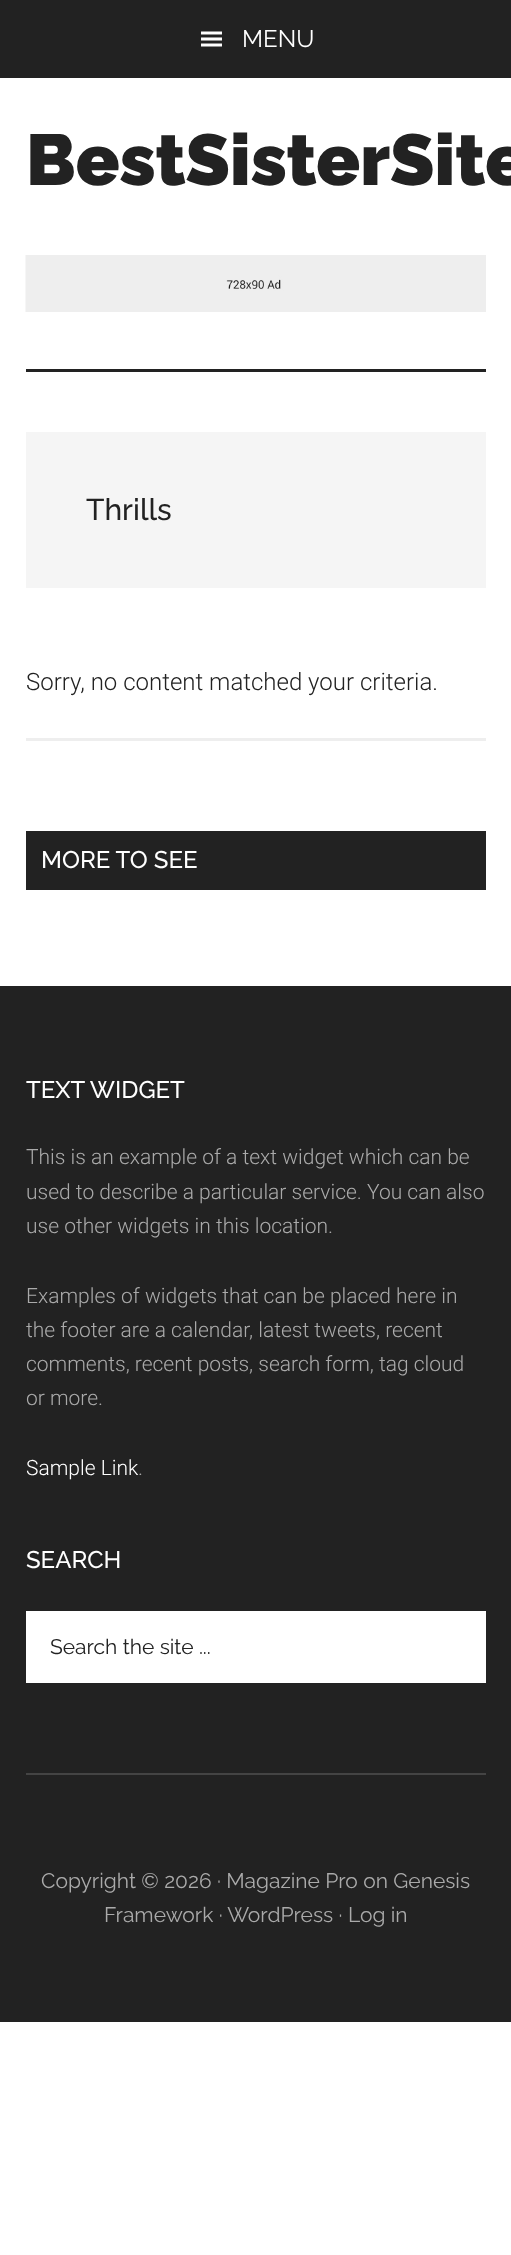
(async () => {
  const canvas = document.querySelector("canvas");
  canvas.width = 511;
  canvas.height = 2255;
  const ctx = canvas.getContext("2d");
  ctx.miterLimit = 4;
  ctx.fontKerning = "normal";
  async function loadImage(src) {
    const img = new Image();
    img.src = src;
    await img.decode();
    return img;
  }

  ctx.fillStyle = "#ffffff";
  ctx.fillRect(0, 0, 511, 2255);
  ctx.fillStyle = "#222222";
  ctx.fillRect(0, 0, 511, 78);
  ctx.drawImage(await loadImage("img/1.png"), 201, 31, 21, 16);
  ctx.fillRect(26, 369, 460, 3);
  ctx.drawImage(await loadImage("img/2.png"), 25, 255, 461, 57);
  for (const [x, y, w, h, color] of [
    [26, 432, 460, 156, "#f5f5f5"],
    [26, 738, 460, 3, "#eeeeee"],
    [26, 831, 460, 59, "#222222"],
    [0, 986, 511, 1036, "#222222"],
    [26, 1611, 460, 72, "#ffffff"],
    [26, 1773, 460, 2, "#444444"],
  ]) {
    ctx.fillStyle = color;
    ctx.fillRect(x, y, w, h);
  }
  ctx.font = "24px Raleway";
  ctx.fillStyle = "#ffffff";
  ctx.fillText("MENU", 242, 47);
  ctx.font = "900 72px Raleway";
  ctx.fillStyle = "#222222";
  ctx.fillText("BestSisterSite", 26, 185);
  ctx.font = "500 30px Raleway";
  ctx.fillText("Thrills", 86, 520);
  ctx.font = "300 24px Roboto";
  ctx.fillText("Sorry, no content matched your criteria.", 26, 690);
  ctx.font = "500 24px Raleway";
  ctx.fillStyle = "#ffffff";
  ctx.fillText("MORE TO SEE", 41, 868);
  ctx.fillText("TEXT WIDGET", 26, 1098);
  ctx.font = "300 21px Roboto";
  ctx.fillStyle = "#aaaaaa";
  for (const [text, x, y] of [
    ["This is an example of a text widget which can be", 26, 1164],
    ["used to describe a particular service. You can also", 26, 1199],
    ["use other widgets in this location.", 26, 1233],
    ["Examples of widgets that can be placed here in", 26, 1303],
    ["the footer are a calendar, latest tweets, recent", 26, 1337],
    ["comments, recent posts, search form, tag cloud", 26, 1371],
    ["or more.", 26, 1405],
  ]) {
    ctx.fillText(text, x, y);
  }
  ctx.fillStyle = "#ffffff";
  ctx.fillText("Sample Link", 26, 1475);
  ctx.fillStyle = "#aaaaaa";
  ctx.fillText(".", 138, 1475);
  ctx.font = "500 24px Raleway";
  ctx.fillStyle = "#ffffff";
  ctx.fillText("SEARCH", 26, 1568);
  ctx.font = "21px Raleway";
  ctx.fillStyle = "#222222";
  ctx.fillText("Search the site ...", 50, 1654);
  ctx.fillStyle = "#aaaaaa";
  ctx.fillText("Copyright © 2026 · Magazine Pro on Genesis", 41, 1888);
  ctx.fillText("Framework · WordPress · Log in", 104, 1922);
})();
